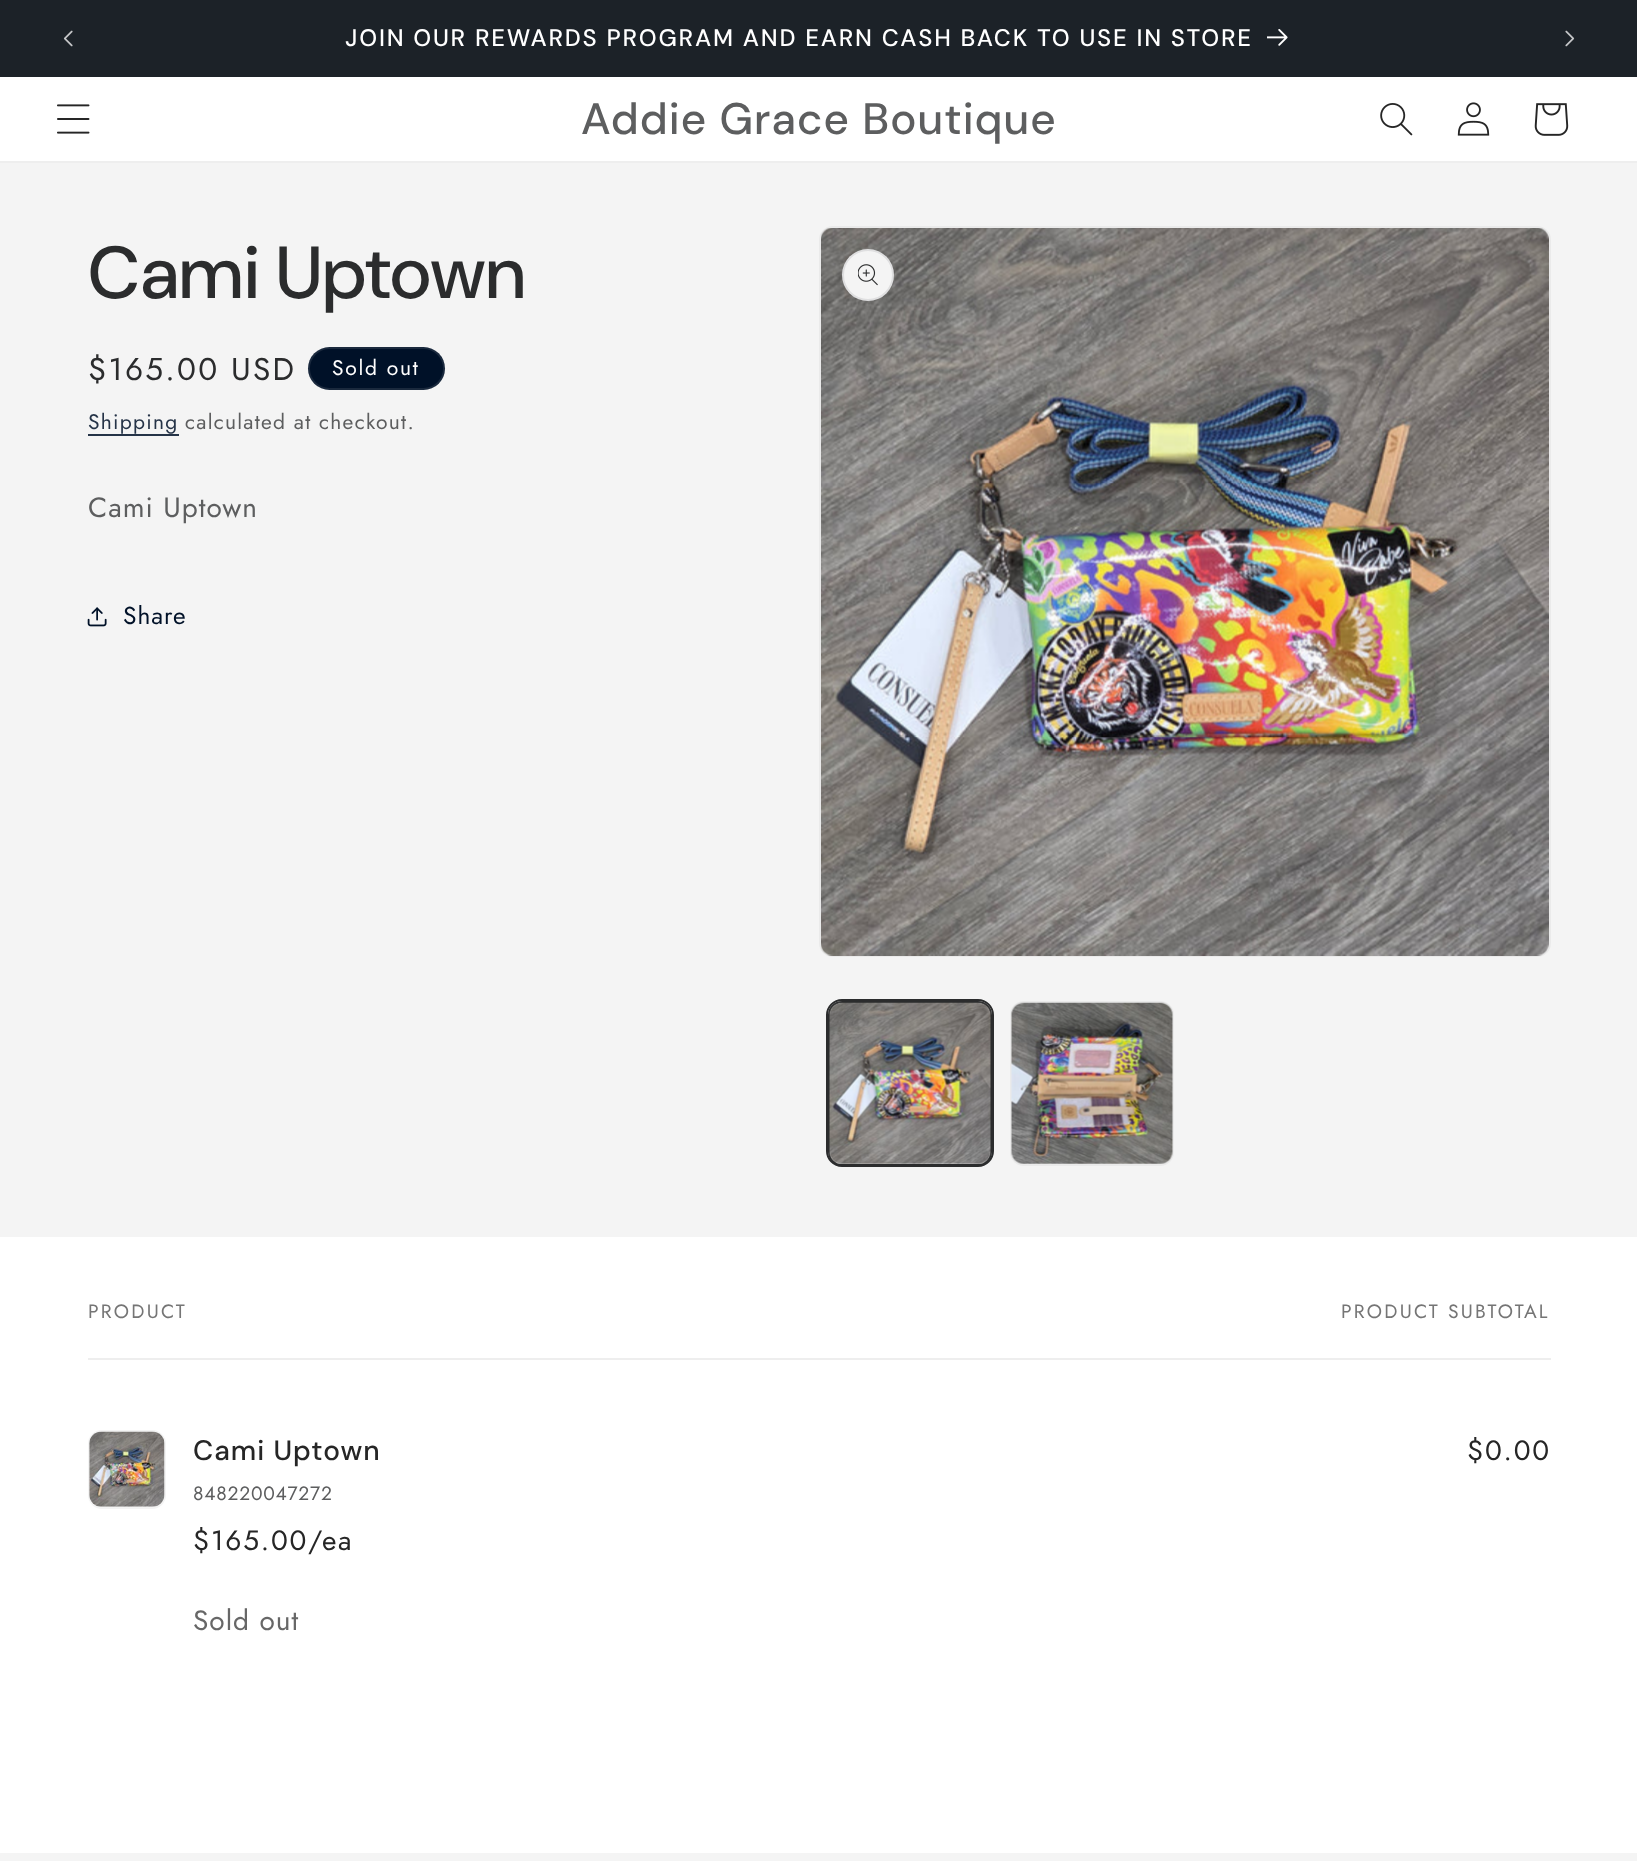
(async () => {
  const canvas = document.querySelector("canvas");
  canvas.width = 1637;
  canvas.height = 1861;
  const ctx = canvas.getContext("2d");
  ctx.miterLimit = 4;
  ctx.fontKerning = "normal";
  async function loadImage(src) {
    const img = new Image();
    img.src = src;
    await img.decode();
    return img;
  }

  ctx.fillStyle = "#f4f4f4";
  ctx.fillRect(0, 0, 1637, 1861);
  ctx.fillStyle = "#1c2228";
  ctx.fillRect(0, 0, 1637, 77);
  ctx.drawImage(await loadImage("img/1.png"), 63, 30, 10, 17);
  ctx.drawImage(await loadImage("img/2.png"), 1267, 29, 21, 17);
  ctx.drawImage(await loadImage("img/3.png"), 1565, 30, 10, 17);
  ctx.fillStyle = "#ffffff";
  ctx.fillRect(0, 77, 1637, 84);
  ctx.fillStyle = "#eeeeee";
  ctx.fillRect(0, 161, 1637, 2);
  ctx.drawImage(await loadImage("img/4.png"), 57, 104, 33, 30);
  ctx.drawImage(await loadImage("img/5.png"), 1380, 103, 33, 33);
  ctx.drawImage(await loadImage("img/6.png"), 1457, 102, 33, 34);
  ctx.drawImage(await loadImage("img/7.png"), 1534, 103, 35, 33);
  ctx.fillStyle = "#001128";
  ctx.beginPath();
  ctx.roundRect(308, 347, 137, 43, 21.5);
  ctx.fill();
  ctx.beginPath();
  ctx.roundRect(309, 348, 135, 41, 20.5);
  ctx.strokeStyle = "rgba(255, 255, 255, 0.1)";
  ctx.lineWidth = 2;
  ctx.stroke();
  ctx.fillStyle = "#253347";
  ctx.fillRect(88, 434, 91, 2);
  ctx.drawImage(await loadImage("img/8.png"), 87, 607, 20, 20);
  ctx.beginPath();
  ctx.roundRect(820, 227, 730, 729, 13);
  ctx.strokeStyle = "#eaeaea";
  ctx.stroke();
  ctx.drawImage(await loadImage("img/9.png"), 821, 228, 728, 728);
  ctx.fillStyle = "#f4f4f4";
  ctx.beginPath();
  ctx.arc(868, 275, 26, 0, Math.PI * 2);
  ctx.fill();
  ctx.beginPath();
  ctx.arc(868, 275, 25, 0, Math.PI * 2);
  ctx.strokeStyle = "rgba(43, 44, 45, 0.1)";
  ctx.stroke();
  ctx.drawImage(await loadImage("img/10.png"), 858, 264, 20, 22);
  ctx.beginPath();
  ctx.roundRect(827, 1000, 166, 166, 15);
  ctx.strokeStyle = "#2b2c2d";
  ctx.stroke();
  ctx.beginPath();
  ctx.roundRect(829, 1002, 162, 163, 13);
  ctx.stroke();
  ctx.drawImage(await loadImage("img/11.png"), 829, 1002, 162, 162);
  ctx.beginPath();
  ctx.roundRect(1011, 1002, 162, 163, 13);
  ctx.strokeStyle = "#eaeaea";
  ctx.stroke();
  ctx.drawImage(await loadImage("img/12.png"), 1011, 1002, 162, 162);
  ctx.fillStyle = "#ffffff";
  ctx.fillRect(0, 1237, 1637, 616);
  ctx.fillStyle = "#eeeeee";
  ctx.fillRect(88, 1358, 1463, 2);
  ctx.beginPath();
  ctx.roundRect(89, 1431, 76, 77, 13);
  ctx.strokeStyle = "#f4f4f4";
  ctx.stroke();
  ctx.drawImage(await loadImage("img/13.png"), 89, 1431, 76, 76);
  ctx.letterSpacing = "1.75px";
  ctx.font = "500 23.9px 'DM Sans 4'";
  ctx.fillStyle = "#ffffff";
  ctx.fillText("JOIN OUR REWARDS PROGRAM AND EARN CASH BACK TO USE IN STORE", 345, 46);
  ctx.letterSpacing = "1.1px";
  ctx.font = "500 44.1px 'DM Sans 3'";
  ctx.fillStyle = "#5d5e5f";
  ctx.fillText("Addie Grace Boutique", 581, 134);
  ctx.font = "500 73.5px DM Sans";
  ctx.fillStyle = "#2b2c2d";
  ctx.fillText("Cami Uptown", 88, 298);
  ctx.letterSpacing = "2.25px";
  ctx.font = "31.5px Jost";
  ctx.fillText("$165.00 USD", 88, 380);
  ctx.letterSpacing = "1.75px";
  ctx.font = "21px Jost";
  ctx.fillStyle = "#ffffff";
  ctx.fillText("Sold out", 332, 375);
  ctx.letterSpacing = "1.25px";
  ctx.fillStyle = "#253347";
  ctx.fillText("Shipping", 88, 429);
  ctx.fillStyle = "#5d5e5f";
  ctx.fillText("calculated at checkout.", 185, 429);
  ctx.letterSpacing = "1px";
  ctx.font = "28px Jost";
  ctx.fillText("Cami Uptown", 88, 517);
  ctx.font = "24.5px Jost";
  ctx.fillStyle = "#001128";
  ctx.fillText("Share", 123, 624);
  ctx.letterSpacing = "2.25px";
  ctx.font = "19.25px Jost";
  ctx.fillStyle = "#757575";
  ctx.fillText("PRODUCT", 88, 1318);
  ctx.fillText("PRODUCT SUBTOTAL", 1341, 1318);
  ctx.letterSpacing = "1px";
  ctx.font = "500 28px 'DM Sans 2'";
  ctx.fillStyle = "#262626";
  ctx.fillText("Cami Uptown", 193, 1460);
  ctx.letterSpacing = "0.75px";
  ctx.font = "19.25px Jost";
  ctx.fillStyle = "#5d5e5f";
  ctx.fillText("848220047272", 193, 1500);
  ctx.letterSpacing = "1.75px";
  ctx.font = "28px Jost";
  ctx.fillStyle = "#262626";
  ctx.fillText("$165.00/ea", 193, 1550);
  ctx.fillText("$0.00", 1467, 1460);
  ctx.letterSpacing = "1px";
  ctx.fillStyle = "#676767";
  ctx.fillText("Sold out", 193, 1630);
})();
